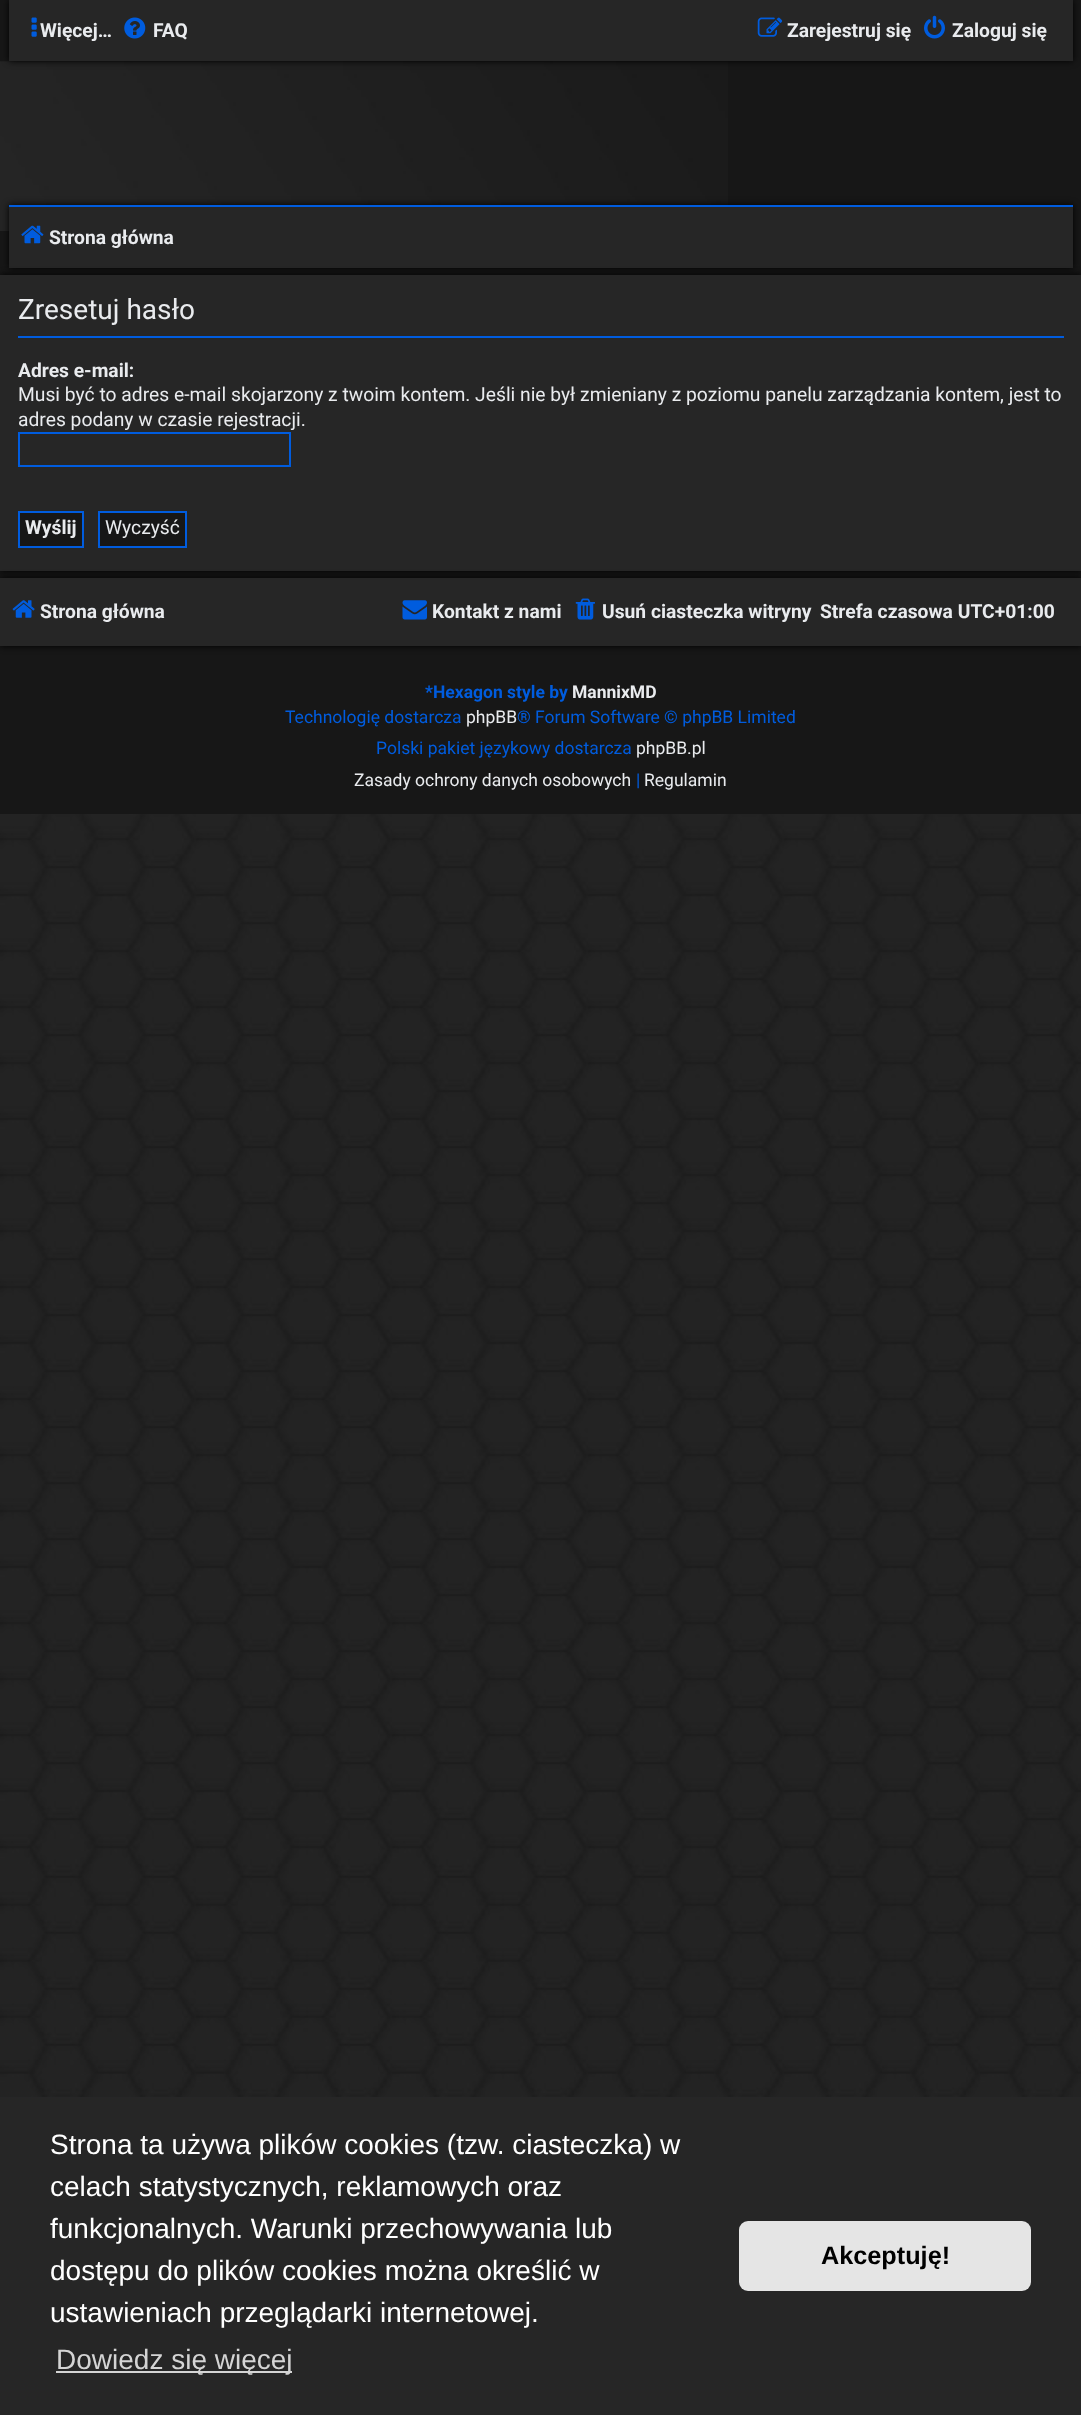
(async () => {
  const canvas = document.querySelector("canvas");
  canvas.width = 1081;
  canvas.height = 2415;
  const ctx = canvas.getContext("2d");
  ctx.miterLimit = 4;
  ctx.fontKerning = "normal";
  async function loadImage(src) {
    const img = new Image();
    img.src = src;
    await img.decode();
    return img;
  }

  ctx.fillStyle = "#ffffff";
  ctx.fillRect(0, 0, 1081, 2415);
  ctx.drawImage(await loadImage("img/1.png"), 0, 814, 1081, 1283);
  ctx.fillStyle = "#171717";
  ctx.fillRect(0, 0, 1081, 814);
  ctx.drawImage(await loadImage("img/6.png"), 0, 61, 728, 170);
  ctx.fillStyle = "#000000";
  ctx.filter = "blur(3.5px)";
  ctx.beginPath();
  ctx.rect(9, 0, 1064, 61);
  ctx.fill();
  ctx.filter = "none";
  ctx.fillStyle = "#262626";
  ctx.fillRect(9, 0, 1064, 61);
  ctx.drawImage(await loadImage("img/2.png"), 31, 17, 6, 20);
  ctx.drawImage(await loadImage("img/3.png"), 124, 17, 22, 22);
  ctx.drawImage(await loadImage("img/4.png"), 757, 17, 26, 20);
  ctx.drawImage(await loadImage("img/5.png"), 924, 15, 21, 24);
  ctx.fillStyle = "#000000";
  ctx.filter = "blur(3.5px)";
  ctx.beginPath();
  ctx.rect(9, 205, 1064, 63);
  ctx.fill();
  ctx.filter = "none";
  ctx.fillStyle = "#262626";
  ctx.fillRect(9, 207, 1064, 61);
  ctx.fillStyle = "#005cde";
  ctx.fillRect(9, 205, 1064, 2);
  ctx.drawImage(await loadImage("img/7.png"), 21, 225, 23, 19);
  ctx.fillStyle = "#000000";
  ctx.filter = "blur(3.5px)";
  ctx.beginPath();
  ctx.rect(0, 275, 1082, 296);
  ctx.fill();
  ctx.filter = "none";
  ctx.fillStyle = "#262626";
  ctx.fillRect(0, 275, 1081, 296);
  ctx.fillStyle = "#005cde";
  ctx.fillRect(18, 336, 1046, 2);
  ctx.strokeStyle = "#005cde";
  ctx.lineWidth = 2;
  ctx.strokeRect(19, 433, 271, 33);
  ctx.fillStyle = "#171717";
  ctx.beginPath();
  ctx.rect(19, 512, 64, 35);
  ctx.fill();
  ctx.stroke();
  ctx.beginPath();
  ctx.rect(99, 512, 87, 35);
  ctx.fill();
  ctx.stroke();
  ctx.fillStyle = "#000000";
  ctx.filter = "blur(3.5px)";
  ctx.beginPath();
  ctx.rect(0, 578, 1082, 68);
  ctx.fill();
  ctx.filter = "none";
  ctx.fillStyle = "#262626";
  ctx.fillRect(0, 578, 1081, 68);
  ctx.drawImage(await loadImage("img/8.png"), 12, 600, 23, 18);
  ctx.drawImage(await loadImage("img/9.png"), 402, 600, 25, 20);
  ctx.drawImage(await loadImage("img/10.png"), 575, 598, 20, 22);
  ctx.fillRect(0, 2097, 1081, 318);
  ctx.fillStyle = "#d4d4d4";
  ctx.fillRect(56, 2371, 236, 2);
  ctx.fillStyle = "#e5e5e5";
  ctx.beginPath();
  ctx.roundRect(739, 2221, 292, 70, 9);
  ctx.fill();
  ctx.font = "bold 19.25px Roboto";
  ctx.fillStyle = "#e9ebee";
  for (const [text, x, y] of [
    ["Więcej…", 40, 37],
    ["FAQ", 153, 37],
    ["Zarejestruj się", 787, 37],
    ["Zaloguj się", 952, 37],
    ["Strona główna", 49, 244],
  ]) {
    ctx.fillText(text, x, y);
  }
  ctx.font = "28px Roboto";
  ctx.fillText("Zresetuj hasło", 18, 319);
  ctx.font = "bold 19.25px Roboto";
  ctx.fillText("Adres e-mail:", 18, 377);
  ctx.font = "19.25px Roboto";
  ctx.fillText("Musi być to adres e-mail skojarzony z twoim kontem. Jeśli nie był zmieniany z poziomu panelu zarządzania kontem, jest to", 18, 401);
  ctx.fillText("adres podany w czasie rejestracji.", 18, 426);
  ctx.font = "bold 19.25px Roboto";
  ctx.fillText("Wyślij", 25, 534);
  ctx.font = "19.25px Roboto";
  ctx.fillText("Wyczyść", 105, 534);
  ctx.font = "bold 19.25px Roboto";
  for (const [text, x, y] of [
    ["Strona główna", 40, 618],
    ["Kontakt z nami", 432, 618],
    ["Usuń ciasteczka witryny", 602, 618],
    ["Strefa czasowa UTC+01:00", 820, 618],
  ]) {
    ctx.fillText(text, x, y);
  }
  ctx.font = "bold 17.5px Roboto";
  ctx.fillStyle = "#005cde";
  ctx.fillText("*Hexagon style by", 425, 698);
  ctx.fillStyle = "#e9ebee";
  ctx.fillText("MannixMD", 572, 698);
  ctx.font = "17.5px Roboto";
  ctx.fillStyle = "#005cde";
  ctx.fillText("Technologię dostarcza", 285, 723);
  ctx.fillStyle = "#e9ebee";
  ctx.fillText("phpBB", 466, 723);
  ctx.fillStyle = "#005cde";
  ctx.fillText("® Forum Software © phpBB Limited", 517, 723);
  ctx.fillText("Polski pakiet językowy dostarcza", 376, 754);
  ctx.fillStyle = "#e9ebee";
  ctx.fillText("phpBB.pl", 636, 754);
  ctx.fillText("Zasady ochrony danych osobowych", 354, 786);
  ctx.fillStyle = "#005cde";
  ctx.fillText("|", 636, 786);
  ctx.fillStyle = "#e9ebee";
  ctx.fillText("Regulamin", 644, 786);
  ctx.font = "28px Liberation Sans";
  ctx.fillStyle = "#ffffff";
  for (const [text, x, y] of [
    ["Strona ta używa plików cookies (tzw. ciasteczka) w", 50, 2154],
    ["celach statystycznych, reklamowych oraz", 50, 2196],
    ["funkcjonalnych. Warunki przechowywania lub", 50, 2238],
    ["dostępu do plików cookies można określić w", 50, 2280],
    ["ustawieniach przeglądarki internetowej.", 50, 2322],
  ]) {
    ctx.fillText(text, x, y);
  }
  ctx.fillStyle = "#d4d4d4";
  ctx.fillText("Dowiedz się więcej", 56, 2369);
  ctx.font = "bold 25.25px Liberation Sans";
  ctx.fillStyle = "#000000";
  ctx.fillText("Akceptuję!", 821, 2264);
})();
